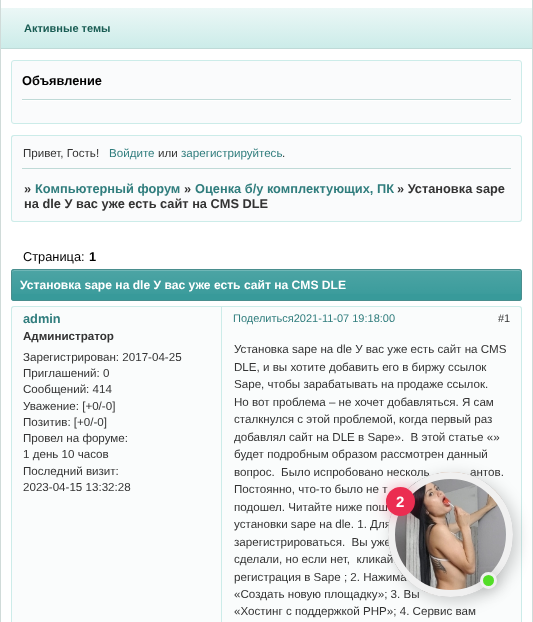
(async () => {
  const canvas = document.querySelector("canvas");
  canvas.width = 533;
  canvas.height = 622;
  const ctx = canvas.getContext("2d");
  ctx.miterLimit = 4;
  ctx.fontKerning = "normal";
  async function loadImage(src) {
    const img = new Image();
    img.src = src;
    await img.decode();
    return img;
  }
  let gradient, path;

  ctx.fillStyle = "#e4f0ee";
  ctx.fillRect(0, 0, 533, 622);
  ctx.fillStyle = "rgba(0, 0, 0, 0.2)";
  ctx.filter = "blur(3px)";
  ctx.beginPath();
  ctx.roundRect(1, -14, 531, 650, 5);
  ctx.fill();
  ctx.filter = "none";
  ctx.fillStyle = "#ffffff";
  ctx.fillRect(1, 0, 531, 622);
  gradient = ctx.createLinearGradient(267, 8, 267, 48);
  gradient.addColorStop(0, "#ebf7f6");
  gradient.addColorStop(1, "#ccece9");
  ctx.fillStyle = gradient;
  ctx.fillRect(1, 8, 531, 40);
  ctx.fillStyle = "#bfdad7";
  ctx.fillRect(1, 48, 531, 1);
  ctx.fillStyle = "#fafbfc";
  ctx.beginPath();
  ctx.roundRect(11.5, 60.5, 510, 63, 2.5);
  ctx.fill();
  ctx.strokeStyle = "#ccece9";
  ctx.stroke();
  ctx.fillStyle = "#ffffff";
  ctx.fillRect(22, 100, 489, 1);
  ctx.fillStyle = "#bfdad7";
  ctx.fillRect(22, 99, 489, 1);
  ctx.fillStyle = "#fafbfc";
  ctx.beginPath();
  ctx.roundRect(11, 135, 511, 35, [3, 3, 0, 0]);
  ctx.fill();
  ctx.fillStyle = "#ccece9";
  path = new Path2D("M14 135H519C521 135 522 136 522 138V170H11V138C11 136 12 135 14 135ZM14 136H519C520 136 521 137 521 138V170H12V138C12 137 13 136 14 136Z");
  ctx.fill(path, "evenodd");
  ctx.fillStyle = "#fafbfc";
  ctx.beginPath();
  ctx.roundRect(11, 168, 511, 54, [0, 0, 3, 3]);
  ctx.fill();
  ctx.fillStyle = "#ccece9";
  path = new Path2D("M11 168H522V219C522 221 521 222 519 222H14C12 222 11 221 11 219ZM12 168H521V219C521 220 520 221 519 221H14C13 221 12 220 12 219Z");
  ctx.fill(path, "evenodd");
  ctx.fillStyle = "#bfdad7";
  ctx.fillRect(22, 168, 489, 1);
  ctx.fillStyle = "#389a9a";
  ctx.beginPath();
  ctx.roundRect(11, 269, 511, 32, 3);
  ctx.fill();
  gradient = ctx.createLinearGradient(267, 270, 267, 300);
  gradient.addColorStop(0, "rgba(255, 255, 255, 0.1)");
  gradient.addColorStop(1, "rgba(255, 255, 255, 0)");
  ctx.fillStyle = gradient;
  ctx.fillRect(11, 270, 511, 24);
  ctx.fillStyle = "#6fb6b6";
  path = new Path2D("M14 271H519C520 271 521 272 521 273C521 272 521 270 519 270H14L12 271V273C12 272 13 271 14 271Z");
  ctx.fill(path);
  ctx.beginPath();
  ctx.roundRect(11.5, 269.5, 510, 31, 2.5);
  ctx.strokeStyle = "#4a8e8e";
  ctx.stroke();
  ctx.fillStyle = "#fafcfc";
  ctx.beginPath();
  ctx.roundRect(11, 306, 511, 24, [3, 3, 0, 0]);
  ctx.fill();
  ctx.fillStyle = "#ccece9";
  path = new Path2D("M14 306H519C521 306 522 307 522 309V330H11V309C11 307 12 306 14 306ZM14 307H519C520 307 521 308 521 309V330H12V309C12 308 13 307 14 307Z");
  ctx.fill(path, "evenodd");
  ctx.fillRect(221, 307, 1, 23);
  ctx.fillStyle = "#fafcfc";
  ctx.fillRect(12, 329, 509, 293);
  ctx.fillStyle = "#ccece9";
  path = new Path2D("M11 329H522V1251C522 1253 521 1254 519 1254H14C12 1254 11 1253 11 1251ZM12 329H521V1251C521 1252 520 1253 519 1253H14C13 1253 12 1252 12 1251Z");
  ctx.fill(path, "evenodd");
  ctx.fillRect(221, 329, 1, 293);
  ctx.fillStyle = "rgba(0, 0, 0, 0.2)";
  ctx.filter = "blur(8px)";
  ctx.beginPath();
  ctx.roundRect(392, 476, 125, 125, 62.5);
  ctx.fill();
  ctx.filter = "none";
  ctx.font = "bold 11px Liberation Sans";
  ctx.fillStyle = "#195c53";
  ctx.fillText("Активные темы", 24, 32);
  ctx.font = "bold 12.8px Liberation Sans";
  ctx.fillStyle = "#000000";
  ctx.fillText("Объявление", 22, 85);
  ctx.font = "11.6px Liberation Sans";
  ctx.fillStyle = "#333333";
  ctx.fillText("Привет, Гость!", 23, 157);
  ctx.fillStyle = "#307d7d";
  ctx.fillText("Войдите", 109, 157);
  ctx.fillStyle = "#333333";
  ctx.fillText("или", 158, 157);
  ctx.fillStyle = "#307d7d";
  ctx.fillText("зарегистрируйтесь", 181, 157);
  ctx.fillStyle = "#333333";
  ctx.fillText(".", 282, 157);
  ctx.font = "bold 12.8px Liberation Sans";
  ctx.fillText("»", 24, 193);
  ctx.fillStyle = "#307d7d";
  ctx.fillText("Компьютерный форум", 35, 193);
  ctx.fillStyle = "#333333";
  ctx.fillText("»", 184, 193);
  ctx.fillStyle = "#307d7d";
  ctx.fillText("Оценка б/у комплектующих, ПК", 195, 193);
  ctx.fillStyle = "#333333";
  ctx.fillText("» Установка sape", 397, 193);
  ctx.fillText("на dle У вас уже есть сайт на CMS DLE", 24, 208);
  ctx.font = "12.8px Liberation Sans";
  ctx.fillStyle = "#000000";
  ctx.fillText("Страница:", 23, 261);
  ctx.font = "bold 12.8px Liberation Sans";
  ctx.fillText("1", 89, 261);
  ctx.font = "bold 12.1px Liberation Sans";
  ctx.fillStyle = "#ffffff";
  ctx.fillText("Установка sape на dle У вас уже есть сайт на CMS DLE", 20, 289);
  ctx.font = "bold 12.8px Liberation Sans";
  ctx.fillStyle = "#307d7d";
  ctx.fillText("admin", 23, 323);
  ctx.font = "bold 11.6px Liberation Sans";
  ctx.fillStyle = "#333333";
  ctx.fillText("Администратор", 23, 340);
  ctx.font = "11.6px Liberation Sans";
  for (const [text, x, y] of [
    ["Зарегистрирован: 2017-04-25", 23, 361],
    ["Приглашений: 0", 23, 377],
    ["Сообщений: 414", 23, 393],
    ["Уважение: [+0/-0]", 23, 410],
    ["Позитив: [+0/-0]", 23, 426],
    ["Провел на форуме:", 23, 442],
    ["1 день 10 часов", 23, 458],
    ["Последний визит:", 23, 475],
    ["2023-04-15 13:32:28", 23, 491],
    ["Установка sape на dle У вас уже есть сайт на CMS", 234, 353],
    ["DLE, и вы хотите добавить его в биржу ссылок", 234, 371],
    ["Sape, чтобы зарабатывать на продаже ссылок.", 234, 388],
    ["Но вот проблема – не хочет добавляться. Я сам", 234, 406],
    ["сталкнулся с этой проблемой, когда первый раз", 234, 423],
    ["добавлял сайт на DLE в Sape».  В этой статье «»", 234, 441],
    ["будет подробным образом рассмотрен данный", 234, 458],
    ["вопрос.  Было испробовано несколь", 234, 476],
    ["антов.", 470, 476],
    ["Постоянно, что-то было не т", 234, 493],
    ["подошел. Читайте ниже пош", 234, 511],
    ["установки sape на dle. 1. Для", 234, 528],
    ["зарегистрироваться.  Вы уже", 234, 546],
    ["сделали, но если нет,  кликай", 234, 563],
    ["регистрация в Sape ; 2. Нажима", 234, 581],
    ["«Создать новую площадку»; 3. Вы", 234, 598],
    ["«Хостинг с поддержкой PHP»; 4. Сервис вам", 234, 615],
  ]) {
    ctx.fillText(text, x, y);
  }
  ctx.font = "11px Liberation Sans";
  ctx.fillStyle = "#307d7d";
  ctx.fillText("Поделиться2021-11-07 19:18:00", 233, 322);
  ctx.fillStyle = "#333333";
  ctx.fillText("#1", 498, 322);
  ctx.drawImage(await loadImage("img/1.png"), 388, 472, 125, 125);
  ctx.beginPath();
  ctx.arc(450.5, 534.5, 59, 0, Math.PI * 2);
  ctx.strokeStyle = "#f0f0f0";
  ctx.lineWidth = 7;
  ctx.stroke();
  ctx.fillStyle = "rgba(235, 45, 81, 0.4)";
  ctx.filter = "blur(8px)";
  ctx.beginPath();
  ctx.roundRect(386, 487, 29, 29, 14.5);
  ctx.fill();
  ctx.filter = "none";
  ctx.fillStyle = "#eb2d51";
  ctx.beginPath();
  ctx.arc(400.5, 501.5, 14.5, 0, Math.PI * 2);
  ctx.fill();
  ctx.font = "bold 15px Liberation Sans";
  ctx.fillStyle = "#ffffff";
  ctx.fillText("2", 396, 507);
  ctx.fillStyle = "rgba(0, 0, 0, 0.2)";
  ctx.filter = "blur(8px)";
  ctx.beginPath();
  ctx.roundRect(480, 572, 17, 17, 8.5);
  ctx.fill();
  ctx.filter = "none";
  ctx.fillStyle = "#52dd26";
  ctx.beginPath();
  ctx.arc(488.5, 580.5, 7, 0, Math.PI * 2);
  ctx.fill();
  ctx.lineWidth = 3;
  ctx.stroke();
})();
